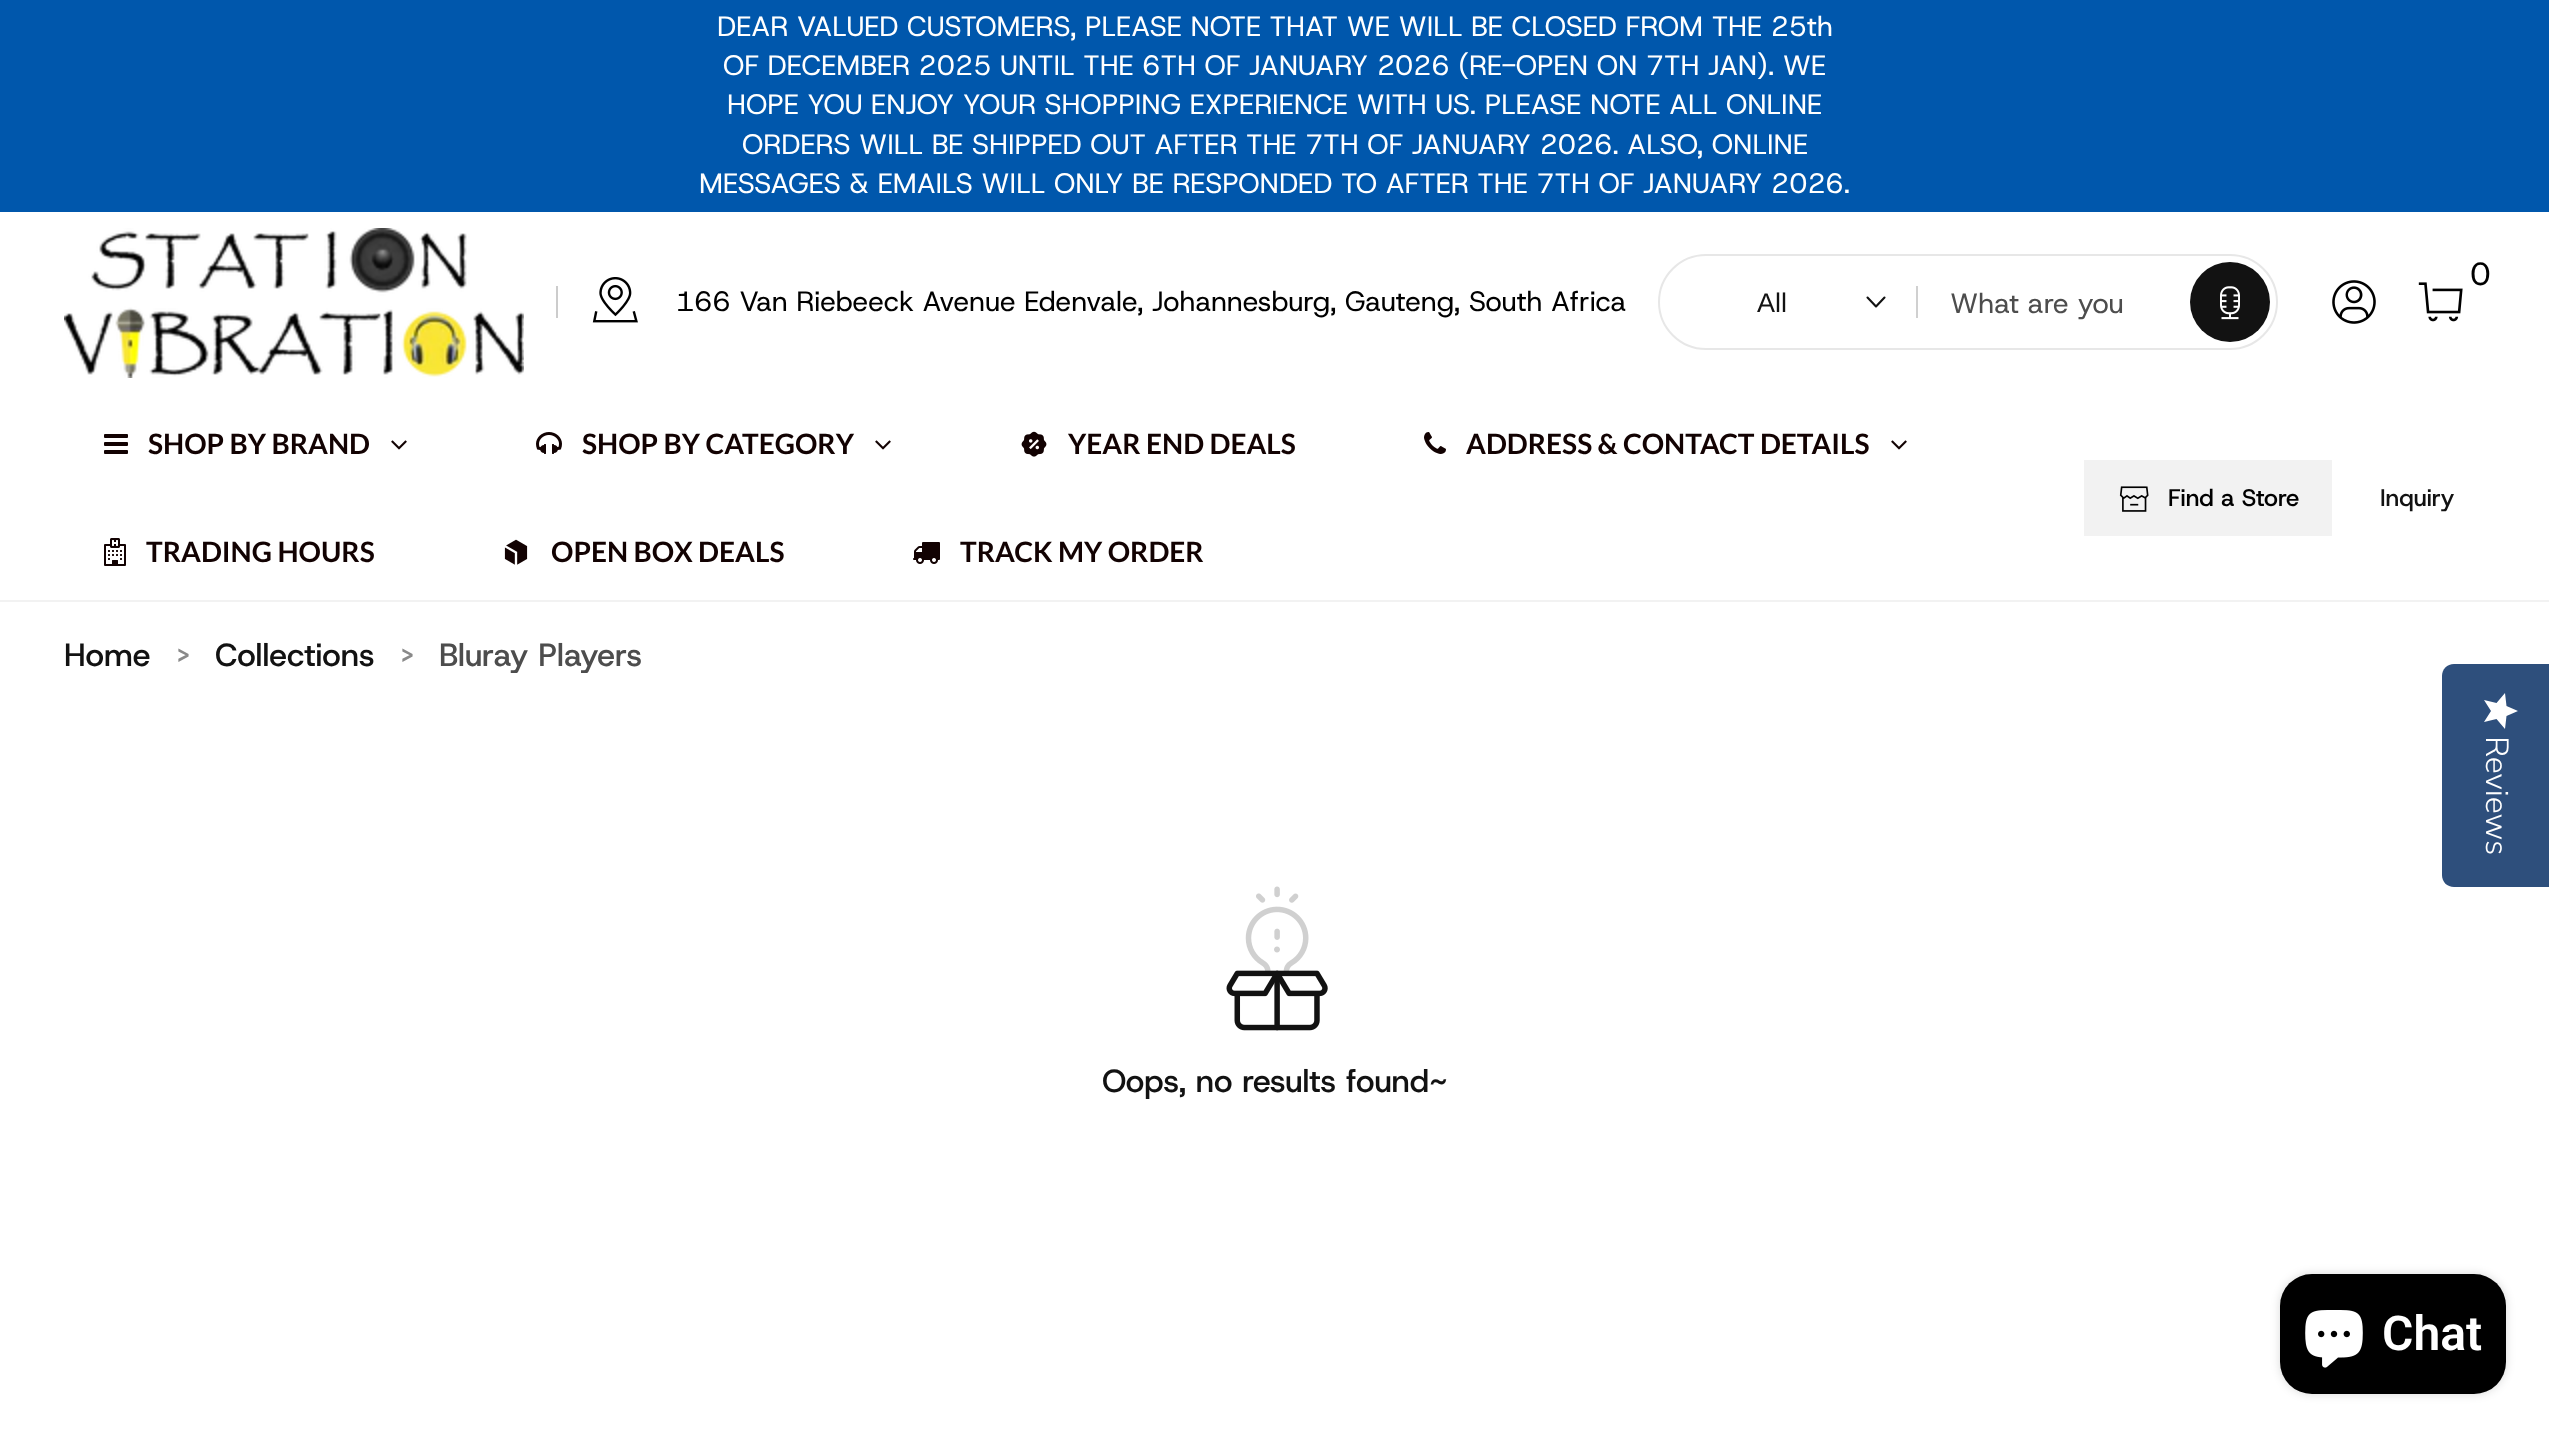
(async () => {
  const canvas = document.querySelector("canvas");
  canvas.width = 2549;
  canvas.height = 1435;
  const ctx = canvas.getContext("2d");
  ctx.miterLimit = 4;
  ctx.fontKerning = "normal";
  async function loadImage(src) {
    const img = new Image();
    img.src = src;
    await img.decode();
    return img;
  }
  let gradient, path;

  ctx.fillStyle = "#ffffff";
  ctx.fillRect(0, 0, 2549, 1435);
  ctx.fillStyle = "#0057ac";
  ctx.fillRect(0, 0, 2549, 212);
  ctx.drawImage(await loadImage("img/1.png"), 2418, 282, 45, 40);
  ctx.drawImage(await loadImage("img/2.png"), 2332, 280, 44, 44);
  ctx.drawImage(await loadImage("img/3.png"), 64, 228, 460, 150);
  ctx.fillStyle = "#cccccc";
  ctx.fillRect(556, 286, 2, 32);
  ctx.drawImage(await loadImage("img/4.png"), 592, 277, 46, 46);
  path = new Path2D("M1884.5 297.5L1876 306.5L1867.5 297.5");
  ctx.strokeStyle = "#121212";
  ctx.lineWidth = 2.1;
  ctx.lineCap = "round";
  ctx.lineJoin = "round";
  ctx.stroke(path);
  ctx.fillStyle = "#d0d0d0";
  ctx.fillRect(1916, 286, 2, 32);
  ctx.fillStyle = "#121212";
  ctx.beginPath();
  ctx.arc(2230, 302, 40, 0, Math.PI * 2);
  ctx.fill();
  ctx.drawImage(await loadImage("img/5.png"), 2220, 286, 20, 34);
  ctx.beginPath();
  ctx.roundRect(1659, 255, 618, 94, 47);
  ctx.strokeStyle = "#e7e7e7";
  ctx.lineWidth = 2;
  ctx.lineJoin = "miter";
  ctx.stroke();
  ctx.drawImage(await loadImage("img/6.png"), 104, 434, 24, 20);
  ctx.drawImage(await loadImage("img/7.png"), 391, 440, 16, 10);
  ctx.drawImage(await loadImage("img/8.png"), 536, 432, 26, 22);
  ctx.drawImage(await loadImage("img/7.png"), 875, 440, 16, 10);
  ctx.drawImage(await loadImage("img/9.png"), 1021, 431, 26, 26);
  ctx.drawImage(await loadImage("img/10.png"), 1424, 432, 22, 22);
  ctx.drawImage(await loadImage("img/7.png"), 1891, 440, 16, 10);
  ctx.drawImage(await loadImage("img/11.png"), 104, 538, 22, 28);
  ctx.drawImage(await loadImage("img/12.png"), 504, 539, 24, 26);
  ctx.drawImage(await loadImage("img/13.png"), 913, 542, 27, 22);
  ctx.fillStyle = "#f2f2f2";
  ctx.fillRect(2084, 460, 248, 76);
  ctx.drawImage(await loadImage("img/14.png"), 2119, 486, 30, 26);
  ctx.fillRect(0, 600, 2549, 2);
  ctx.drawImage(await loadImage("img/15.png"), 1226, 886, 102, 145);
  ctx.fillStyle = "#2e4f7c";
  path = new Path2D("M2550 664V887H2454C2447 887 2442 882 2442 875V676C2442 669 2447 664 2454 664Z");
  ctx.fill(path);
  gradient = ctx.createLinearGradient(2518, 693, 2518, 729);
  gradient.addColorStop(1, "#ffffff");
  gradient.addColorStop(1, "#eaeaea");
  ctx.fillStyle = gradient;
  path = new Path2D("M2491 711L2484 722L2496.5 719L2505 729L2506.5 716L2518 711L2506.5 706L2505 693L2496.5 703L2484 700Z");
  ctx.fill(path);
  ctx.fillStyle = "rgba(0, 0, 0, 0.15)";
  ctx.filter = "blur(5px)";
  ctx.beginPath();
  ctx.roundRect(2280, 1274, 226, 120, 32);
  ctx.fill();
  ctx.filter = "none";
  ctx.fillStyle = "#000000";
  ctx.beginPath();
  ctx.roundRect(2280, 1274, 226, 120, 32);
  ctx.fill();
  ctx.drawImage(await loadImage("img/16.png"), 2305, 1310, 58, 58);
  ctx.font = "28px Host Grotesk";
  ctx.fillStyle = "#ffffff";
  for (const [text, x, y] of [
    ["DEAR VALUED CUSTOMERS, PLEASE NOTE THAT WE WILL BE CLOSED FROM THE 25th", 717, 36],
    ["OF DECEMBER 2025 UNTIL THE 6TH OF JANUARY 2026 (RE-OPEN ON 7TH JAN). WE", 723, 75],
    ["HOPE YOU ENJOY YOUR SHOPPING EXPERIENCE WITH US. PLEASE NOTE ALL ONLINE", 727, 114],
    ["ORDERS WILL BE SHIPPED OUT AFTER THE 7TH OF JANUARY 2026. ALSO, ONLINE", 742, 154],
    ["MESSAGES & EMAILS WILL ONLY BE RESPONDED TO AFTER THE 7TH OF JANUARY 2026.", 699, 193],
  ]) {
    ctx.fillText(text, x, y);
  }
  ctx.font = "32px Host Grotesk";
  ctx.fillStyle = "#000000";
  ctx.fillText("0", 2470, 285);
  ctx.font = "28px Host Grotesk";
  ctx.fillText("166 Van Riebeeck Avenue Edenvale, Johannesburg, Gauteng, South Africa", 676, 311);
  ctx.font = "27px Liberation Sans";
  ctx.fillStyle = "#121212";
  ctx.fillText("All", 1757, 312);
  ctx.font = "28px Host Grotesk";
  ctx.fillStyle = "#4d4d4d";
  ctx.fillText("What are you", 1950, 313);
  ctx.font = "bold 28px Lato";
  ctx.fillStyle = "#120202";
  for (const [text, x, y] of [
    ["SHOP BY BRAND", 148, 454],
    ["SHOP BY CATEGORY", 582, 454],
    ["YEAR END DEALS", 1068, 454],
    ["ADDRESS & CONTACT DETAILS", 1466, 454],
    ["TRADING HOURS", 146, 562],
    ["OPEN BOX DEALS", 551, 562],
    ["TRACK MY ORDER", 960, 562],
  ]) {
    ctx.fillText(text, x, y);
  }
  ctx.font = "500 24px Host Grotesk";
  ctx.fillStyle = "#000000";
  ctx.fillText("Find a Store", 2168, 506);
  ctx.fillStyle = "#121212";
  ctx.fillText("Inquiry", 2380, 506);
  ctx.font = "500 32px Host Grotesk";
  ctx.fillText("Home", 64, 666);
  ctx.font = "500 28px Host Grotesk";
  ctx.fillStyle = "#898989";
  ctx.fillText(">", 175, 665);
  ctx.font = "500 32px Host Grotesk";
  ctx.fillStyle = "#121212";
  ctx.fillText("Collections", 215, 666);
  ctx.font = "500 28px Host Grotesk";
  ctx.fillStyle = "#898989";
  ctx.fillText(">", 399, 665);
  ctx.font = "500 32px Host Grotesk";
  ctx.fillStyle = "#4d4d4d";
  ctx.fillText("Bluray Players", 439, 666);
  ctx.fillStyle = "#121212";
  ctx.fillText("Oops, no results found~", 1102, 1092);
  ctx.font = "300 32px Nunito Sans";
  ctx.fillStyle = "#ffffff";
  ctx.save();
  ctx.translate(2486, 736);
  ctx.rotate(90 * Math.PI / 180);
  ctx.fillText("Reviews", 0, 0);
  ctx.restore();
  ctx.font = "600 48px Roboto";
  ctx.fillText("Chat", 2382, 1350);
})();
